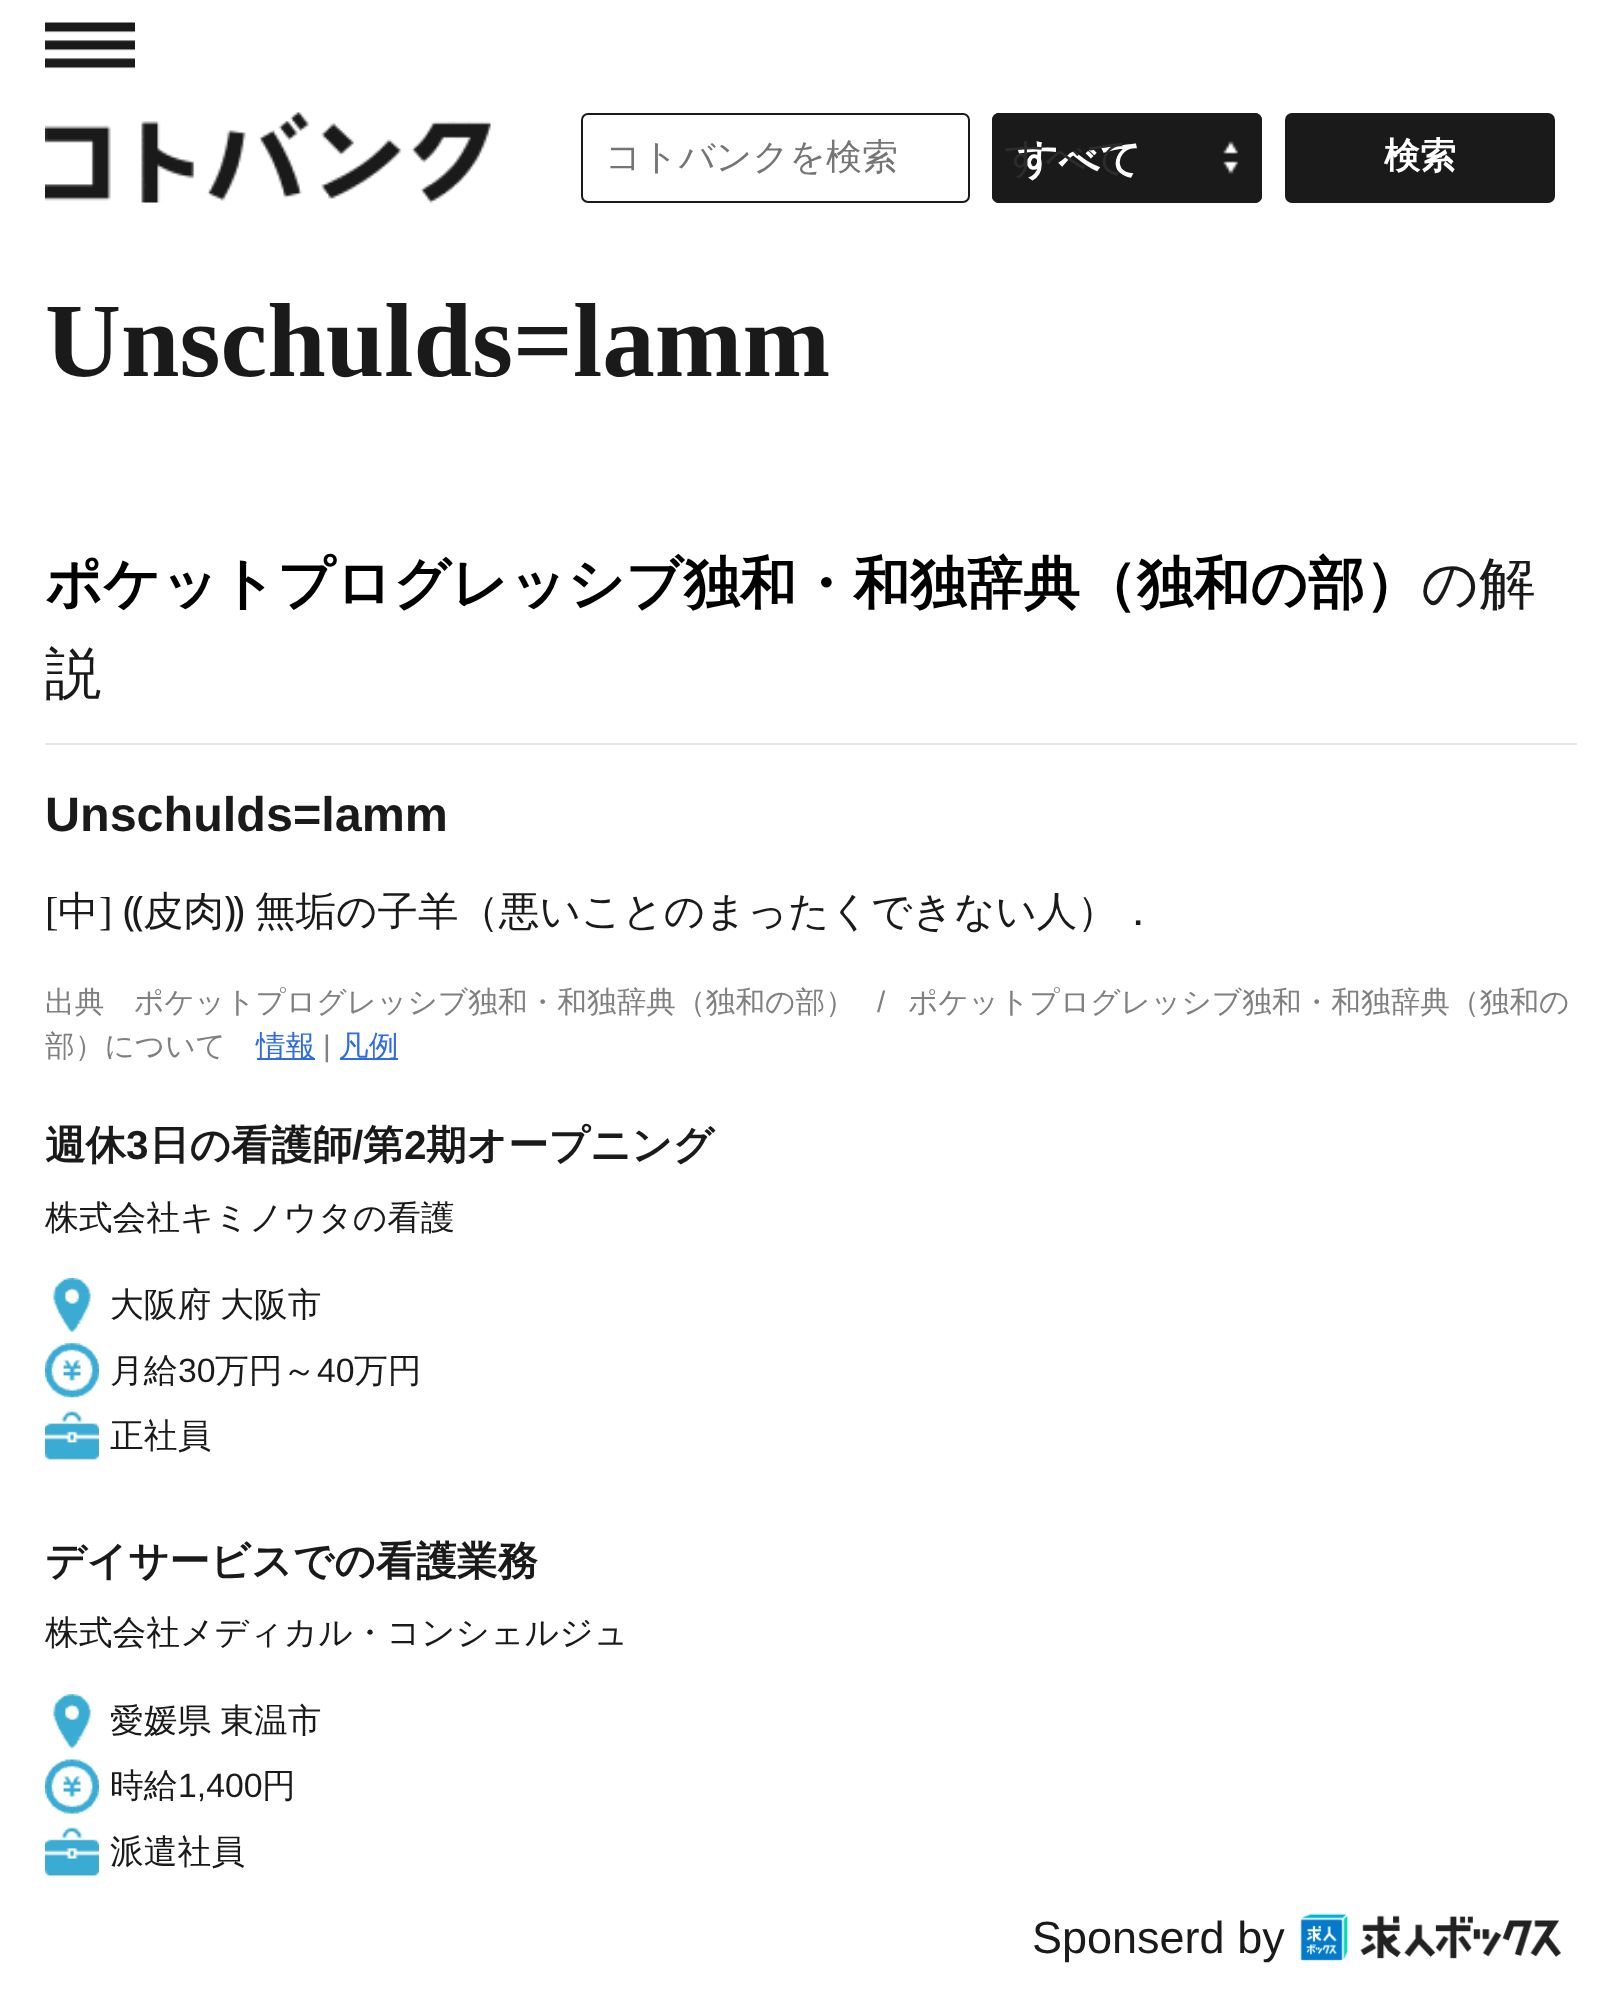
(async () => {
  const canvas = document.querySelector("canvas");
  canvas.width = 1622;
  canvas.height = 2015;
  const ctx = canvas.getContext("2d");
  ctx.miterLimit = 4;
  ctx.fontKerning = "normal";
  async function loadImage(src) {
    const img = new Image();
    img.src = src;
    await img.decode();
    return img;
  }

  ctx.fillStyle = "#ffffff";
  ctx.fillRect(0, 0, 1622, 2015);
  ctx.drawImage(await loadImage("img/1.png"), 45, 22, 90, 47);
  ctx.drawImage(await loadImage("img/2.png"), 45, 112, 446, 91);
  ctx.beginPath();
  ctx.roundRect(582, 114, 387, 88, 6);
  ctx.strokeStyle = "#1a1a1a";
  ctx.lineWidth = 2;
  ctx.stroke();
  ctx.fillStyle = "#1a1a1a";
  ctx.beginPath();
  ctx.roundRect(992, 113, 270, 90, 7);
  ctx.fill();
  ctx.drawImage(await loadImage("img/3.png"), 1223, 141, 15, 33);
  ctx.beginPath();
  ctx.roundRect(993, 114, 268, 88, 6);
  ctx.stroke();
  ctx.beginPath();
  ctx.roundRect(1286, 114, 268, 88, 6);
  ctx.fill();
  ctx.stroke();
  for (const [x, y, w, h, color] of [
    [45, 743, 1532, 2, "#e6e6e6"],
    [257, 1058, 58, 2, "#2f6be6"],
    [340, 1058, 58, 2, "#2f6be6"],
  ]) {
    ctx.fillStyle = color;
    ctx.fillRect(x, y, w, h);
  }
  ctx.drawImage(await loadImage("img/4.png"), 53, 1278, 38, 54);
  ctx.drawImage(await loadImage("img/5.png"), 45, 1343, 54, 55);
  ctx.drawImage(await loadImage("img/6.png"), 45, 1411, 54, 49);
  ctx.drawImage(await loadImage("img/7.png"), 53, 1694, 38, 55);
  ctx.drawImage(await loadImage("img/8.png"), 45, 1759, 54, 55);
  ctx.drawImage(await loadImage("img/9.png"), 45, 1827, 54, 49);
  ctx.font = "500 36px WenQuanYi Zen Hei";
  ctx.fillStyle = "#757575";
  ctx.fillText("コトバンクを検索", 605, 169);
  ctx.font = "bold 40.5px WenQuanYi Zen Hei";
  ctx.fillStyle = "#ffffff";
  ctx.fillText("すべて", 1017, 173);
  ctx.font = "500 40.5px WenQuanYi Zen Hei";
  ctx.fillStyle = "#2c2c2c";
  ctx.fillText("すべて", 1004, 171);
  ctx.font = "bold 36px WenQuanYi Zen Hei";
  ctx.fillStyle = "#ffffff";
  ctx.fillText("検索", 1384, 168);
  ctx.font = "bold 105.25px Liberation Serif";
  ctx.fillStyle = "#1a1a1a";
  ctx.fillText("Unschulds=lamm", 45, 376);
  ctx.font = "bold 56.7px WenQuanYi Zen Hei";
  ctx.fillStyle = "#000000";
  ctx.fillText("ポケットプログレッシブ独和・和独辞典（独和の部）", 45, 603);
  ctx.font = "500 56.7px WenQuanYi Zen Hei";
  ctx.fillStyle = "#1a1a1a";
  ctx.fillText("の解", 1421, 603);
  ctx.fillText("説", 45, 693);
  ctx.font = "bold 48.5px Liberation Sans";
  ctx.fillText("Unschulds=lamm", 45, 831);
  ctx.font = "40.5px Liberation Serif";
  ctx.fillText("[", 45, 925);
  ctx.font = "500 40.5px WenQuanYi Zen Hei";
  ctx.fillText("中", 58, 925);
  ctx.font = "40.5px Liberation Serif";
  ctx.fillText("]", 99, 925);
  ctx.font = "40.5px Noto Sans";
  ctx.fillText("⸨", 123, 925);
  ctx.font = "500 40.5px WenQuanYi Zen Hei";
  ctx.fillText("皮肉", 143, 925);
  ctx.font = "40.5px Noto Sans";
  ctx.fillText("⸩", 224, 925);
  ctx.font = "500 40.5px WenQuanYi Zen Hei";
  ctx.fillText("無垢の子羊（悪いことのまったくできない人）．", 255, 925);
  ctx.font = "500 29.7px WenQuanYi Zen Hei";
  ctx.fillStyle = "#808080";
  ctx.fillText("ポケットプログレッシブ独和・和独辞典（独和の部）", 134, 1012);
  ctx.font = "29.7px Liberation Sans";
  ctx.fillText("/", 877, 1012);
  ctx.font = "500 29.7px WenQuanYi Zen Hei";
  ctx.fillText("ポケットプログレッシブ独和・和独辞典（独和の", 908, 1012);
  ctx.fillText("部）について", 45, 1056);
  ctx.fillStyle = "#2f6be6";
  ctx.fillText("情報", 256, 1056);
  ctx.font = "29.7px Liberation Sans";
  ctx.fillStyle = "#808080";
  ctx.fillText("|", 323, 1056);
  ctx.font = "500 29.7px WenQuanYi Zen Hei";
  ctx.fillStyle = "#2f6be6";
  ctx.fillText("凡例", 339, 1056);
  ctx.fillStyle = "#808080";
  ctx.fillText("出典", 45, 1012);
  ctx.font = "bold 40.5px WenQuanYi Zen Hei";
  ctx.fillStyle = "#1a1a1a";
  ctx.fillText("週休", 45, 1159);
  ctx.font = "bold 40.5px Liberation Sans";
  ctx.fillText("3", 126, 1159);
  ctx.font = "bold 40.5px WenQuanYi Zen Hei";
  ctx.fillText("日の看護師", 149, 1159);
  ctx.font = "bold 40.5px Liberation Sans";
  ctx.fillText("/", 352, 1159);
  ctx.font = "bold 40.5px WenQuanYi Zen Hei";
  ctx.fillText("第", 363, 1159);
  ctx.font = "bold 40.5px Liberation Sans";
  ctx.fillText("2", 404, 1159);
  ctx.font = "bold 40.5px WenQuanYi Zen Hei";
  ctx.fillText("期オープニング", 426, 1159);
  ctx.font = "500 33.75px WenQuanYi Zen Hei";
  ctx.fillText("株式会社キミノウタの看護", 45, 1229);
  ctx.wordSpacing = "-1px";
  ctx.fillText("大阪府 大阪市", 110, 1316);
  ctx.wordSpacing = "0px";
  ctx.fillText("月給", 110, 1382);
  ctx.font = "33.75px Liberation Sans";
  ctx.fillText("30", 178, 1382);
  ctx.font = "500 33.75px WenQuanYi Zen Hei";
  ctx.fillText("万円～", 215, 1382);
  ctx.font = "33.75px Liberation Sans";
  ctx.fillText("40", 317, 1382);
  ctx.font = "500 33.75px WenQuanYi Zen Hei";
  ctx.fillText("万円", 354, 1382);
  ctx.fillText("正社員", 110, 1447);
  ctx.font = "bold 40.5px WenQuanYi Zen Hei";
  ctx.fillText("デイサービスでの看護業務", 45, 1575);
  ctx.font = "500 33.75px WenQuanYi Zen Hei";
  ctx.fillText("株式会社メディカル・コンシェルジュ", 45, 1644);
  ctx.wordSpacing = "-1px";
  ctx.fillText("愛媛県 東温市", 110, 1732);
  ctx.wordSpacing = "0px";
  ctx.fillText("時給", 110, 1797);
  ctx.font = "33.75px Liberation Sans";
  ctx.fillText("1,400", 178, 1797);
  ctx.font = "500 33.75px WenQuanYi Zen Hei";
  ctx.fillText("円", 262, 1797);
  ctx.fillText("派遣社員", 110, 1863);
  ctx.font = "45px Liberation Sans";
  ctx.fillText("Sponserd by", 1032, 1953);
  ctx.drawImage(await loadImage("img/10.png"), 1284, 1913, 278, 48);
})();
